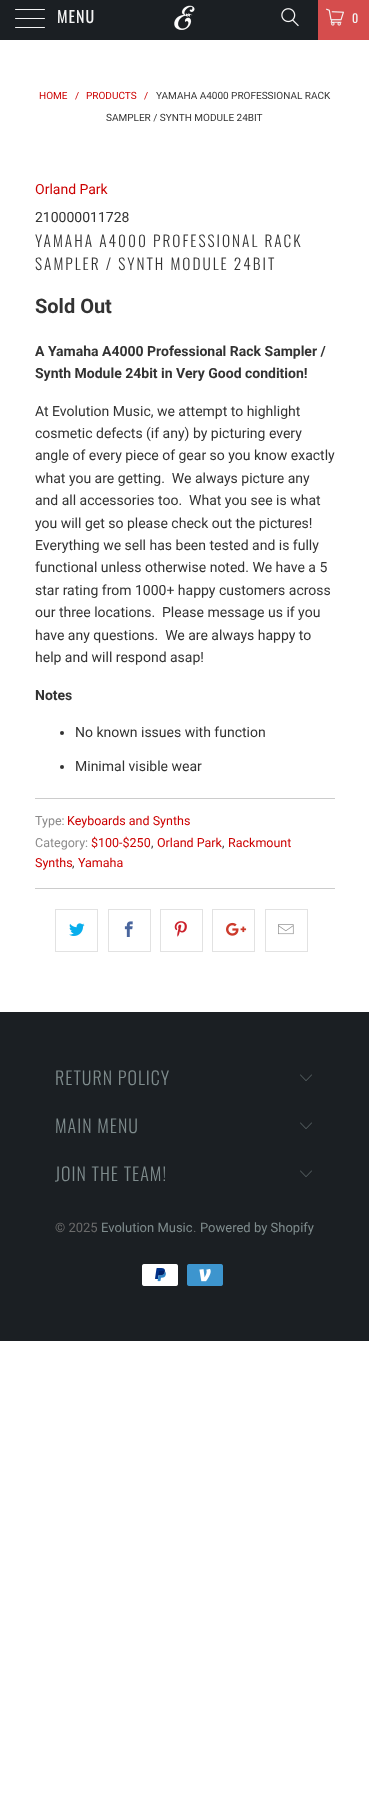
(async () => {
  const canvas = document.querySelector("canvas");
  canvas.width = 369;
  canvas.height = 1809;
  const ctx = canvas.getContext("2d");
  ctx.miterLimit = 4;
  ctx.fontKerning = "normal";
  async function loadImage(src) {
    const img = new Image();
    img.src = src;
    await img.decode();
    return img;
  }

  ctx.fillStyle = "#ffffff";
  ctx.fillRect(0, 0, 369, 1809);
  ctx.fillStyle = "#1b1f23";
  ctx.fillRect(0, 0, 318, 40);
  ctx.fillStyle = "#f4f4f4";
  ctx.beginPath();
  ctx.roundRect(15, 9, 30, 1, 0.5);
  ctx.fill();
  ctx.beginPath();
  ctx.roundRect(15, 18, 30, 1, 0.5);
  ctx.fill();
  ctx.beginPath();
  ctx.roundRect(15, 27, 30, 1, 0.5);
  ctx.fill();
  ctx.drawImage(await loadImage("img/1.png"), 174, 5, 21, 25);
  ctx.drawImage(await loadImage("img/2.png"), 281, 8, 18, 19);
  ctx.fillStyle = "#d54d4d";
  ctx.fillRect(318, 0, 51, 40);
  ctx.drawImage(await loadImage("img/3.png"), 326, 8, 18, 18);
  ctx.fillStyle = "#333333";
  ctx.beginPath();
  ctx.arc(62, 733, 2, 0, Math.PI * 2);
  ctx.fill();
  ctx.beginPath();
  ctx.arc(62, 767, 2, 0, Math.PI * 2);
  ctx.fill();
  ctx.fillStyle = "#cccccc";
  ctx.fillRect(35, 798, 300, 1);
  ctx.fillRect(35, 888, 300, 1);
  ctx.strokeStyle = "#e2e2e2";
  ctx.strokeRect(55.5, 909.5, 42, 42);
  ctx.drawImage(await loadImage("img/4.png"), 69, 923, 16, 13);
  ctx.strokeRect(108.5, 909.5, 42, 42);
  ctx.drawImage(await loadImage("img/5.png"), 124, 921, 9, 16);
  ctx.strokeRect(160.5, 909.5, 42, 42);
  ctx.drawImage(await loadImage("img/6.png"), 174, 921, 13, 16);
  ctx.strokeRect(212.5, 909.5, 42, 42);
  ctx.drawImage(await loadImage("img/7.png"), 226, 922, 21, 14);
  ctx.strokeRect(265.5, 909.5, 42, 42);
  ctx.drawImage(await loadImage("img/8.png"), 278, 924, 16, 11);
  ctx.fillStyle = "#1b1f23";
  ctx.fillRect(0, 1012, 369, 329);
  ctx.drawImage(await loadImage("img/9.png"), 300, 1074, 12, 7);
  ctx.drawImage(await loadImage("img/9.png"), 300, 1122, 12, 7);
  ctx.drawImage(await loadImage("img/9.png"), 300, 1170, 12, 7);
  ctx.drawImage(await loadImage("img/10.png"), 142, 1264, 36, 22);
  ctx.drawImage(await loadImage("img/11.png"), 187, 1264, 36, 22);
  ctx.letterSpacing = "1px";
  ctx.font = "16px Oswald";
  ctx.fillStyle = "#f4f4f4";
  ctx.fillText("MENU", 57, 23);
  ctx.font = "12px Oswald";
  ctx.fillText("0", 352, 23);
  ctx.letterSpacing = "0px";
  ctx.font = "10px Roboto";
  ctx.fillStyle = "#cc0000";
  for (const [text, x, y] of [
    ["HOME", 39, 99],
    ["/", 75, 99],
    ["PRODUCTS", 86, 99],
    ["/", 144, 99],
  ]) {
    ctx.fillText(text, x, y);
  }
  ctx.fillStyle = "#333333";
  ctx.fillText("YAMAHA A4000 PROFESSIONAL RACK", 156, 99);
  ctx.fillText("SAMPLER / SYNTH MODULE 24BIT", 106, 121);
  ctx.font = "14px Roboto";
  ctx.fillStyle = "#cc0000";
  ctx.fillText("Orland Park", 35, 194);
  ctx.fillStyle = "#333333";
  ctx.fillText("210000011728", 35, 222);
  ctx.letterSpacing = "2px";
  ctx.font = "300 15.4px Oswald";
  ctx.fillText("YAMAHA A4000 PROFESSIONAL RACK", 35, 247);
  ctx.fillText("SAMPLER / SYNTH MODULE 24BIT", 35, 270);
  ctx.letterSpacing = "0px";
  ctx.font = "bold 20px Roboto";
  ctx.fillText("Sold Out", 35, 313);
  ctx.font = "bold 14px Roboto";
  ctx.fillText("A Yamaha A4000 Professional Rack Sampler /", 35, 356);
  ctx.fillText("Synth Module 24bit in Very Good condition!", 35, 378);
  ctx.font = "14px Roboto";
  for (const [text, x, y] of [
    ["At Evolution Music, we attempt to highlight", 35, 416],
    ["cosmetic defects (if any) by picturing every", 35, 438],
    ["angle of every piece of gear so you know exactly", 35, 460],
    ["what you are getting.  We always picture any", 35, 483],
    ["and all accessories too.  What you see is what", 35, 505],
    ["you will get so please check out the pictures!", 35, 528],
    ["Everything we sell has been tested and is fully", 35, 550],
    ["functional unless otherwise noted. We have a 5", 35, 572],
    ["star rating from 1000+ happy customers across", 35, 595],
    ["our three locations.  Please message us if you", 35, 617],
    ["have any questions.  We are always happy to", 35, 640],
    ["help and will respond asap!", 35, 662],
  ]) {
    ctx.fillText(text, x, y);
  }
  ctx.font = "bold 14px Roboto";
  ctx.fillText("Notes", 35, 700);
  ctx.font = "14px Roboto";
  ctx.fillText("No known issues with function", 75, 737);
  ctx.fillText("Minimal visible wear", 75, 771);
  ctx.font = "12.5px Roboto";
  ctx.fillStyle = "#8c8b8b";
  ctx.fillText("Type:", 35, 825);
  ctx.fillStyle = "#cc0000";
  ctx.fillText("Keyboards and Synths", 67, 825);
  ctx.fillStyle = "#8c8b8b";
  ctx.fillText("Category:", 35, 847);
  ctx.fillStyle = "#cc0000";
  ctx.fillText("$100-$250", 91, 847);
  ctx.fillStyle = "#333333";
  ctx.fillText(",", 151, 847);
  ctx.fillText(",", 222, 847);
  ctx.fillStyle = "#cc0000";
  for (const [text, x, y] of [
    ["Orland Park", 157, 847],
    ["Rackmount", 228, 847],
    ["Synths", 35, 867],
  ]) {
    ctx.fillText(text, x, y);
  }
  ctx.fillStyle = "#333333";
  ctx.fillText(",", 72, 867);
  ctx.fillStyle = "#cc0000";
  ctx.fillText("Yamaha", 78, 867);
  ctx.letterSpacing = "1px";
  ctx.font = "300 18px Oswald";
  ctx.fillStyle = "#7f8c8d";
  for (const [text, x, y] of [
    ["RETURN POLICY", 55, 1085],
    ["MAIN MENU", 55, 1133],
    ["JOIN THE TEAM!", 55, 1181],
  ]) {
    ctx.fillText(text, x, y);
  }
  ctx.letterSpacing = "0px";
  ctx.font = "13px Roboto";
  ctx.fillStyle = "#6b6b6b";
  ctx.fillText("© 2025", 55, 1232);
  ctx.fillStyle = "#7f8c8d";
  ctx.fillText("Evolution Music", 101, 1232);
  ctx.fillStyle = "#6b6b6b";
  ctx.fillText(".", 193, 1232);
  ctx.fillStyle = "#7f8c8d";
  ctx.fillText("Powered by Shopify", 200, 1232);
})();
